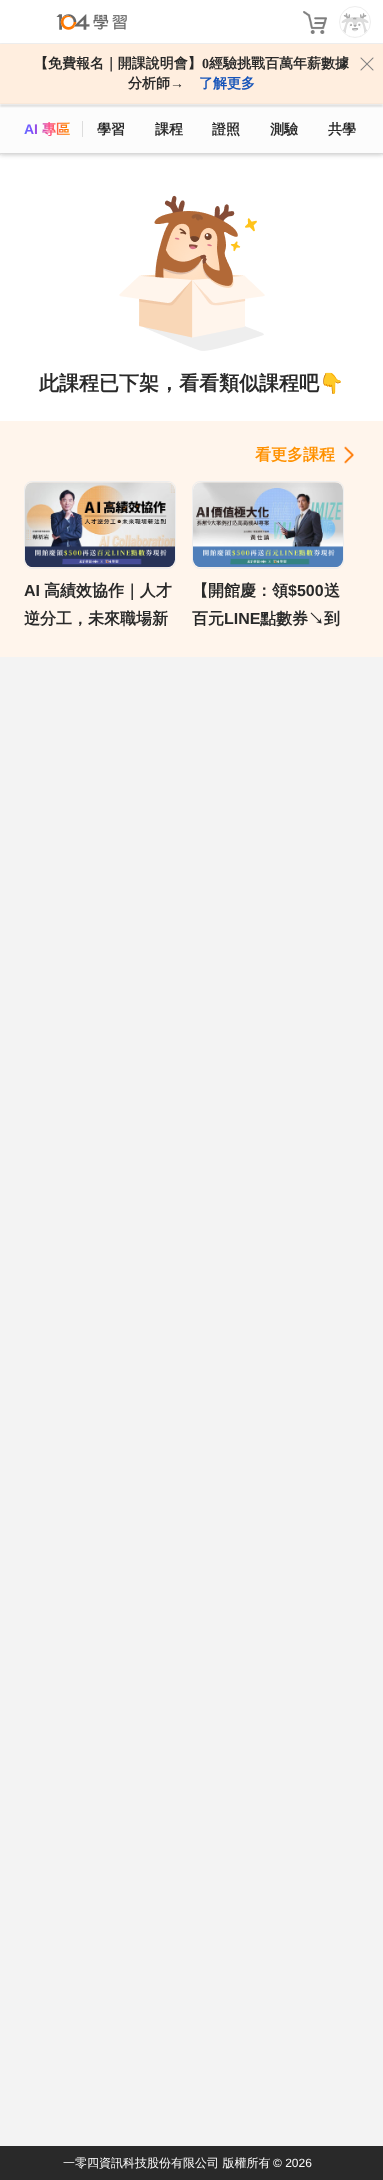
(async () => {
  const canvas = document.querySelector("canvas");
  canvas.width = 383;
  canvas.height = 2180;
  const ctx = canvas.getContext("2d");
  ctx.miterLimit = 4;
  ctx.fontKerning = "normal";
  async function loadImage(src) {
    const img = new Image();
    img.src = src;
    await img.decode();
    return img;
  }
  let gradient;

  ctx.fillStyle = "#f3f3f3";
  ctx.fillRect(0, 0, 383, 2180);
  ctx.fillStyle = "#ffffff";
  ctx.beginPath();
  ctx.roundRect(0, 153, 383, 504, 4);
  ctx.fill();
  ctx.fillStyle = "rgba(0, 0, 0, 0.2)";
  ctx.filter = "blur(2px)";
  ctx.beginPath();
  ctx.rect(0, 46, 383, 109);
  ctx.fill();
  ctx.filter = "none";
  ctx.fillStyle = "#ffffff";
  ctx.fillRect(0, 0, 383, 43);
  ctx.drawImage(await loadImage("img/1.png"), 56, 14, 71, 16);
  ctx.drawImage(await loadImage("img/2.png"), 303, 11, 24, 23);
  ctx.beginPath();
  ctx.arc(355, 22, 15.5, 0, Math.PI * 2);
  ctx.strokeStyle = "#eeeeee";
  ctx.stroke();
  ctx.drawImage(await loadImage("img/3.png"), 341, 13, 28, 24);
  ctx.fillStyle = "#fcfcfc";
  ctx.fillRect(0, 104, 383, 49);
  ctx.fillStyle = "#ffeedf";
  ctx.fillRect(0, 44, 383, 60);
  ctx.drawImage(await loadImage("img/4.png"), 360, 57, 14, 14);
  ctx.fillStyle = "rgba(0, 0, 0, 0.3)";
  ctx.filter = "blur(1px)";
  ctx.beginPath();
  ctx.rect(0, 105, 383, 1);
  ctx.fill();
  ctx.filter = "none";
  ctx.fillStyle = "#dddddd";
  ctx.fillRect(82, 121, 1, 16);
  ctx.drawImage(await loadImage("img/5.png"), 119, 195, 146, 156);
  ctx.fillStyle = "#fff5ec";
  ctx.fillRect(0, 421, 383, 236);
  ctx.drawImage(await loadImage("img/6.png"), 344, 446, 10, 18);
  ctx.beginPath();
  ctx.roundRect(24.5, 481.5, 151, 87, 7.5);
  ctx.stroke();
  ctx.drawImage(await loadImage("img/7.png"), 25, 482, 150, 86);
  ctx.beginPath();
  ctx.roundRect(192.5, 481.5, 151, 87, 7.5);
  ctx.stroke();
  ctx.drawImage(await loadImage("img/8.png"), 193, 482, 150, 86);
  ctx.fillStyle = "#292929";
  ctx.fillRect(0, 2146, 383, 34);
  ctx.font = "bold 14px WenQuanYi Zen Hei";
  ctx.fillText("【免費報名｜開課說明會】", 34, 68);
  ctx.font = "bold 14px Liberation Serif";
  ctx.fillText("0", 202, 68);
  ctx.font = "bold 14px WenQuanYi Zen Hei";
  ctx.fillText("經驗挑戰百萬年薪數據", 209, 68);
  ctx.fillText("分析師", 128, 88);
  ctx.font = "bold 14px Liberation Serif";
  ctx.fillText("→", 170, 88);
  ctx.font = "bold 14px WenQuanYi Zen Hei";
  ctx.fillStyle = "#1654b9";
  ctx.fillText("了解更多", 199, 88);
  ctx.font = "bold 14px Liberation Sans";
  gradient = ctx.createLinearGradient(12, 129, 82, 129);
  gradient.addColorStop(0.05, "#4d90ff");
  gradient.addColorStop(0.29, "#7a4cff");
  gradient.addColorStop(0.53, "#ff4d8b");
  gradient.addColorStop(0.76, "#ff7800");
  gradient.addColorStop(1, "#ffa43c");
  ctx.fillStyle = gradient;
  ctx.fillText("AI", 24, 134);
  ctx.font = "bold 14px WenQuanYi Zen Hei";
  ctx.fillText("專區", 42, 134);
  ctx.fillStyle = "#292929";
  for (const [text, x, y] of [
    ["學習", 97, 134],
    ["課程", 155, 134],
    ["證照", 212, 134],
    ["測驗", 270, 134],
    ["共學", 328, 134],
  ]) {
    ctx.fillText(text, x, y);
  }
  ctx.font = "bold 20px WenQuanYi Zen Hei";
  ctx.fillText("此課程已下架，看看類似課程吧", 39, 390);
  ctx.font = "bold 20px Noto Color Emoji";
  ctx.fillText("👇", 319, 390);
  ctx.font = "bold 16px WenQuanYi Zen Hei";
  ctx.fillStyle = "#ff9100";
  ctx.fillText("看更多課程", 255, 460);
  ctx.font = "bold 16px Liberation Sans";
  ctx.fillStyle = "#292929";
  ctx.fillText("AI", 24, 596);
  ctx.font = "bold 16px WenQuanYi Zen Hei";
  for (const [text, x, y] of [
    ["高績效協作｜人才", 44, 596],
    ["逆分工，未來職場新", 24, 624],
    ["【開館慶：領", 192, 596],
  ]) {
    ctx.fillText(text, x, y);
  }
  ctx.font = "bold 16px Liberation Sans";
  ctx.fillText("$500", 288, 596);
  ctx.font = "bold 16px WenQuanYi Zen Hei";
  ctx.fillText("送", 324, 596);
  ctx.fillText("百元", 192, 624);
  ctx.font = "bold 16px Liberation Sans";
  ctx.fillText("LINE", 224, 624);
  ctx.font = "bold 16px WenQuanYi Zen Hei";
  ctx.fillText("點數券↘到", 260, 624);
  ctx.font = "500 12px WenQuanYi Zen Hei";
  ctx.fillStyle = "#fcfcfc";
  ctx.fillText("一零四資訊科技股份有限公司 版權所有", 63, 2167);
  ctx.font = "12px Liberation Sans";
  ctx.fillText("© 2026", 273, 2167);
})();
